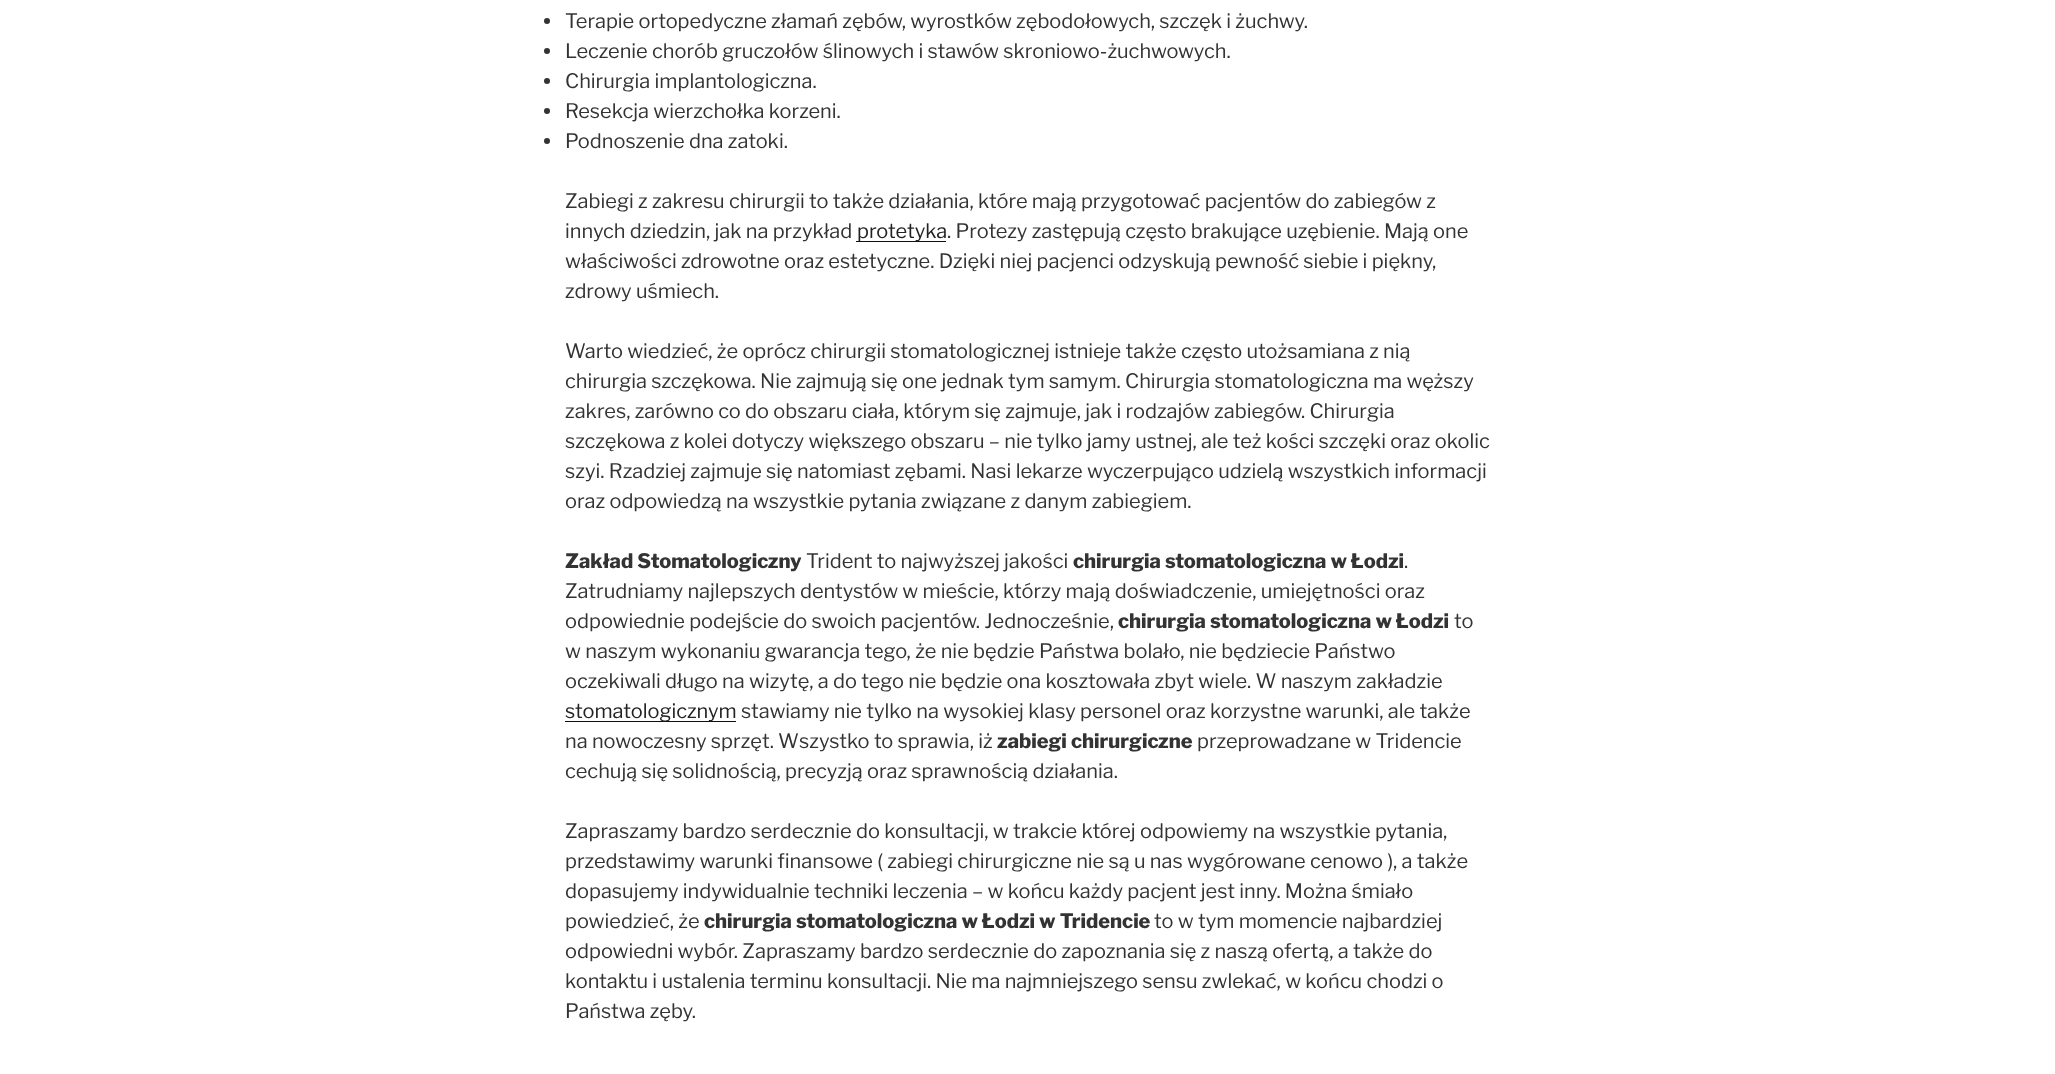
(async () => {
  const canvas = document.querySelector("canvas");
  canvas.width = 2055;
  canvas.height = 1074;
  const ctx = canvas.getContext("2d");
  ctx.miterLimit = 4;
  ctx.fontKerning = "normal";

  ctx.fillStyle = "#ffffff";
  ctx.fillRect(0, 0, 2055, 1074);
  ctx.fillStyle = "#333333";
  ctx.beginPath();
  ctx.arc(547, 21, 3, 0, Math.PI * 2);
  ctx.fill();
  ctx.beginPath();
  ctx.arc(547, 51, 3, 0, Math.PI * 2);
  ctx.fill();
  ctx.beginPath();
  ctx.arc(547, 81, 3, 0, Math.PI * 2);
  ctx.fill();
  ctx.beginPath();
  ctx.arc(547, 111, 3, 0, Math.PI * 2);
  ctx.fill();
  ctx.beginPath();
  ctx.arc(547, 141, 3, 0, Math.PI * 2);
  ctx.fill();
  ctx.fillStyle = "#0f0f0f";
  ctx.fillRect(856, 241, 90, 1);
  ctx.fillRect(565, 721, 171, 1);
  ctx.font = "100 20px Libre Franklin";
  ctx.fillStyle = "#333333";
  for (const [text, x, y] of [
    ["Terapie ortopedyczne złamań zębów, wyrostków zębodołowych, szczęk i żuchwy.", 565, 28],
    ["Leczenie chorób gruczołów ślinowych i stawów skroniowo-żuchwowych.", 565, 58],
    ["Chirurgia implantologiczna.", 565, 88],
    ["Resekcja wierzchołka korzeni.", 565, 118],
    ["Podnoszenie dna zatoki.", 565, 148],
    ["Zabiegi z zakresu chirurgii to także działania, które mają przygotować pacjentów do zabiegów z", 565, 208],
    ["innych dziedzin, jak na przykład", 565, 238],
  ]) {
    ctx.fillText(text, x, y);
  }
  ctx.fillStyle = "#222222";
  ctx.fillText("protetyka", 857, 238);
  ctx.fillStyle = "#333333";
  for (const [text, x, y] of [
    [". Protezy zastępują często brakujące uzębienie. Mają one", 947, 238],
    ["właściwości zdrowotne oraz estetyczne. Dzięki niej pacjenci odzyskują pewność siebie i piękny,", 565, 268],
    ["zdrowy uśmiech.", 565, 298],
    ["Warto wiedzieć, że oprócz chirurgii stomatologicznej istnieje także często utożsamiana z nią", 565, 358],
    ["chirurgia szczękowa. Nie zajmują się one jednak tym samym. Chirurgia stomatologiczna ma węższy", 565, 388],
    ["zakres, zarówno co do obszaru ciała, którym się zajmuje, jak i rodzajów zabiegów. Chirurgia", 565, 418],
    ["szczękowa z kolei dotyczy większego obszaru – nie tylko jamy ustnej, ale też kości szczęki oraz okolic", 565, 448],
    ["szyi. Rzadziej zajmuje się natomiast zębami. Nasi lekarze wyczerpująco udzielą wszystkich informacji", 565, 478],
    ["oraz odpowiedzą na wszystkie pytania związane z danym zabiegiem.", 565, 508],
  ]) {
    ctx.fillText(text, x, y);
  }
  ctx.font = "100 20px 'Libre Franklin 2'";
  ctx.fillText("Zakład Stomatologiczny", 565, 568);
  ctx.font = "100 20px Libre Franklin";
  ctx.fillText("Trident to najwyższej jakości", 806, 568);
  ctx.font = "100 20px 'Libre Franklin 2'";
  ctx.fillText("chirurgia stomatologiczna w Łodzi", 1073, 568);
  ctx.font = "100 20px Libre Franklin";
  for (const [text, x, y] of [
    [".", 1404, 568],
    ["Zatrudniamy najlepszych dentystów w mieście, którzy mają doświadczenie, umiejętności oraz", 565, 598],
    ["odpowiednie podejście do swoich pacjentów. Jednocześnie,", 565, 628],
  ]) {
    ctx.fillText(text, x, y);
  }
  ctx.font = "100 20px 'Libre Franklin 2'";
  ctx.fillText("chirurgia stomatologiczna w Łodzi", 1118, 628);
  ctx.font = "100 20px Libre Franklin";
  for (const [text, x, y] of [
    ["to", 1454, 628],
    ["w naszym wykonaniu gwarancja tego, że nie będzie Państwa bolało, nie będziecie Państwo", 565, 658],
    ["oczekiwali długo na wizytę, a do tego nie będzie ona kosztowała zbyt wiele. W naszym zakładzie", 565, 688],
  ]) {
    ctx.fillText(text, x, y);
  }
  ctx.fillStyle = "#222222";
  ctx.fillText("stomatologicznym", 565, 718);
  ctx.fillStyle = "#333333";
  ctx.fillText("stawiamy nie tylko na wysokiej klasy personel oraz korzystne warunki, ale także", 741, 718);
  ctx.fillText("na nowoczesny sprzęt. Wszystko to sprawia, iż", 565, 748);
  ctx.font = "100 20px 'Libre Franklin 2'";
  ctx.fillText("zabiegi chirurgiczne", 997, 748);
  ctx.font = "100 20px Libre Franklin";
  for (const [text, x, y] of [
    ["przeprowadzane w Tridencie", 1197, 748],
    ["cechują się solidnością, precyzją oraz sprawnością działania.", 565, 778],
    ["Zapraszamy bardzo serdecznie do konsultacji, w trakcie której odpowiemy na wszystkie pytania,", 565, 838],
    ["przedstawimy warunki finansowe ( zabiegi chirurgiczne nie są u nas wygórowane cenowo ), a także", 565, 868],
    ["dopasujemy indywidualnie techniki leczenia – w końcu każdy pacjent jest inny. Można śmiało", 565, 898],
    ["powiedzieć, że", 565, 928],
  ]) {
    ctx.fillText(text, x, y);
  }
  ctx.font = "100 20px 'Libre Franklin 2'";
  ctx.fillText("chirurgia stomatologiczna w Łodzi w Tridencie", 704, 928);
  ctx.font = "100 20px Libre Franklin";
  for (const [text, x, y] of [
    ["to w tym momencie najbardziej", 1154, 928],
    ["odpowiedni wybór. Zapraszamy bardzo serdecznie do zapoznania się z naszą ofertą, a także do", 565, 958],
    ["kontaktu i ustalenia terminu konsultacji. Nie ma najmniejszego sensu zwlekać, w końcu chodzi o", 565, 988],
    ["Państwa zęby.", 565, 1018],
  ]) {
    ctx.fillText(text, x, y);
  }
})();
